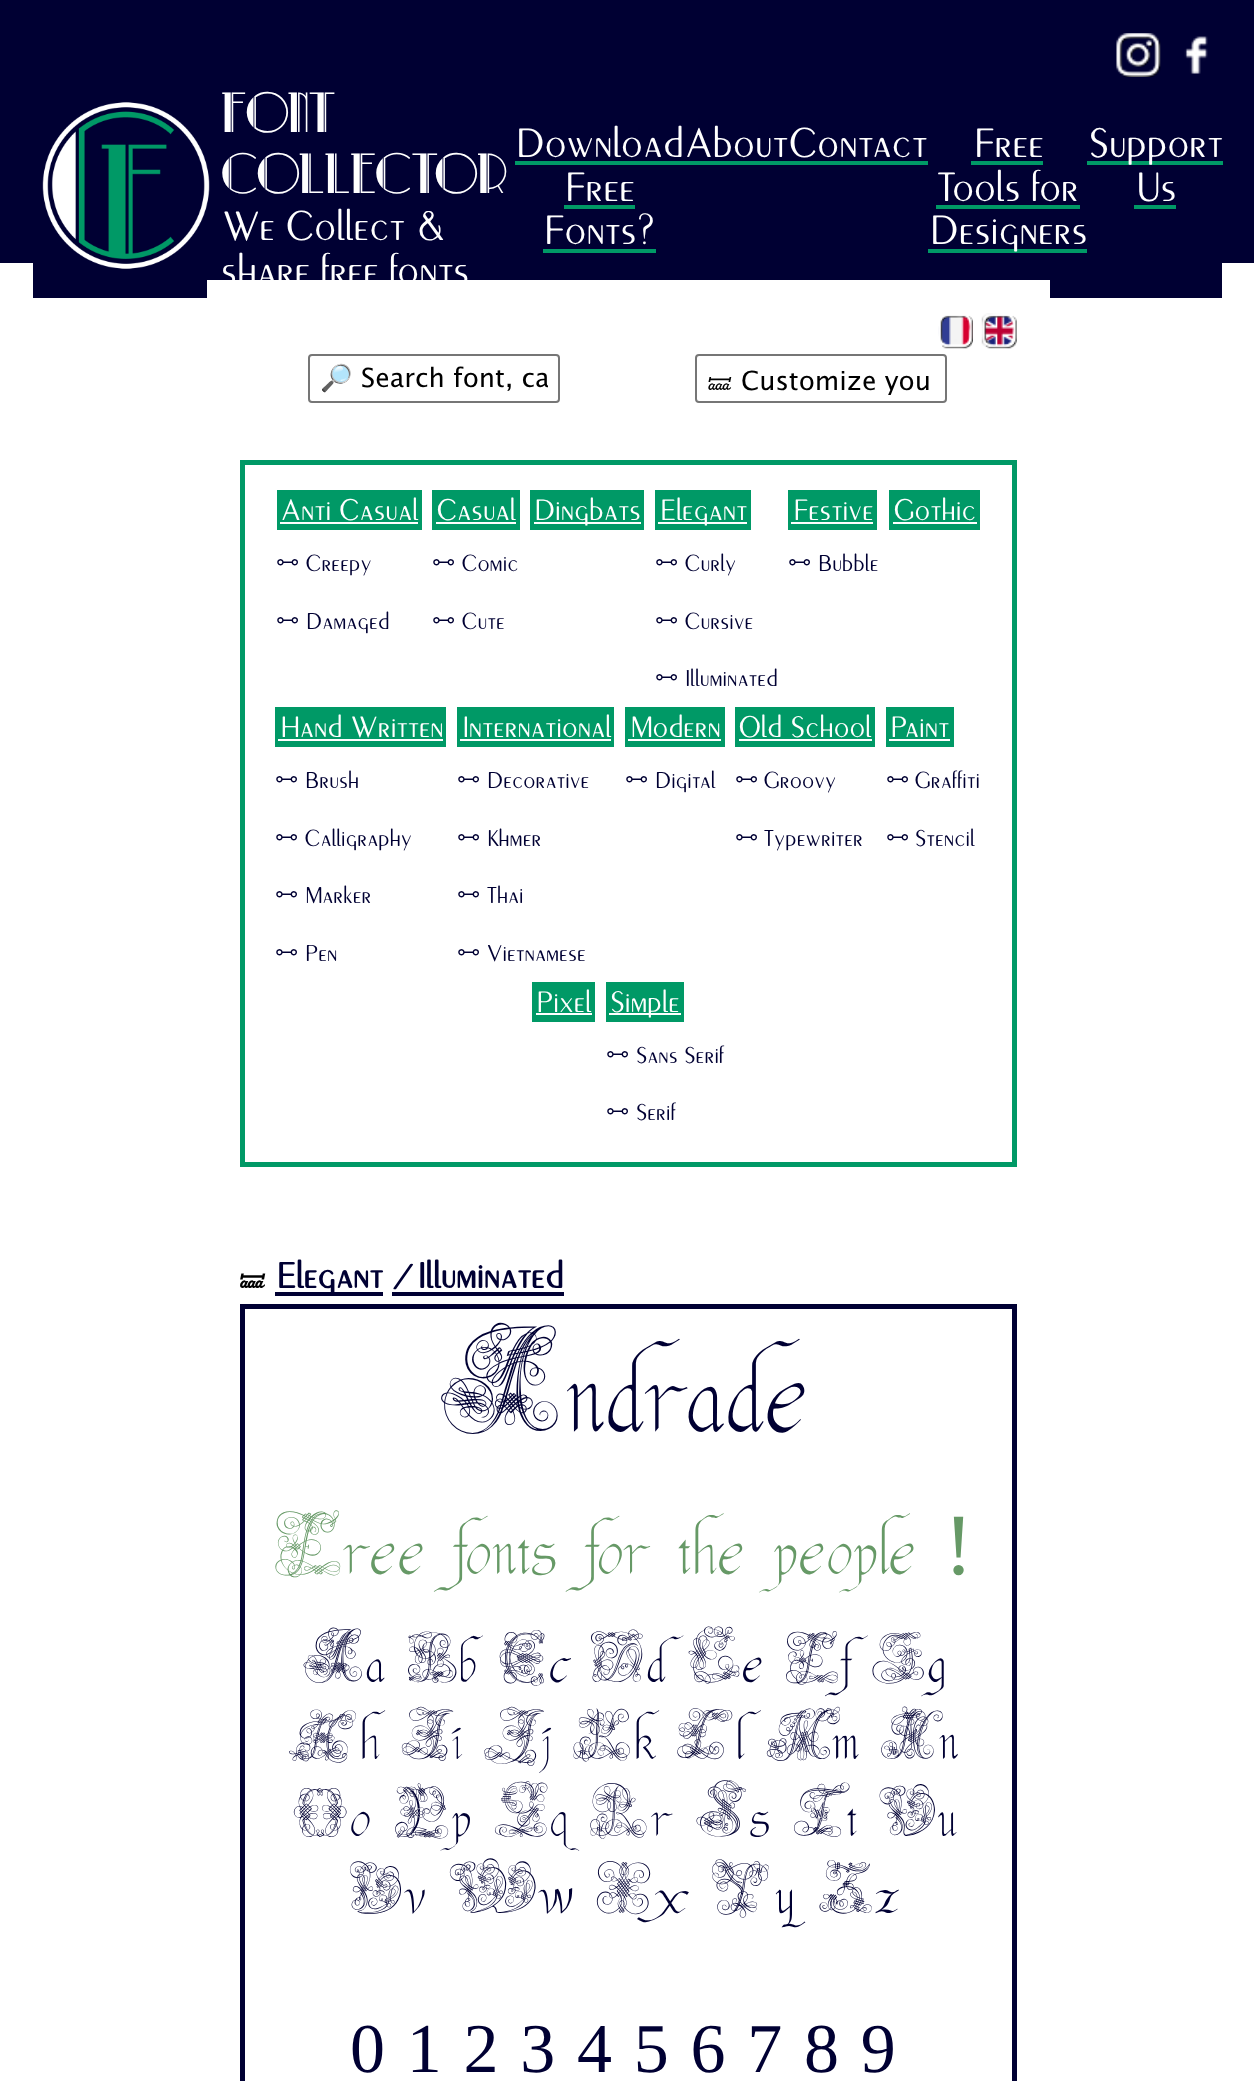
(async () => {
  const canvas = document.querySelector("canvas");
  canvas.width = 1254;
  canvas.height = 2081;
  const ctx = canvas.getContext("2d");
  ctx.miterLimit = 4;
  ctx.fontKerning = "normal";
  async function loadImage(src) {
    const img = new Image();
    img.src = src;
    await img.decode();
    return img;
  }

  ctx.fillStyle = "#ffffff";
  ctx.fillRect(0, 0, 1254, 2081);
  ctx.fillStyle = "#000033";
  ctx.fillRect(0, 0, 1254, 263);
  ctx.drawImage(await loadImage("img/1.png"), 1116, 33, 45, 44);
  ctx.drawImage(await loadImage("img/2.png"), 1184, 36, 24, 38);
  ctx.fillRect(33, 263, 1189, 35);
  ctx.drawImage(await loadImage("img/3.png"), 42, 102, 168, 167);
  for (const [x, y, w, h, color] of [
    [515, 161, 413, 4, "#009966"],
    [564, 205, 71, 4, "#009966"],
    [543, 249, 113, 4, "#009966"],
    [971, 161, 72, 4, "#009966"],
    [936, 205, 144, 4, "#009966"],
    [928, 249, 159, 4, "#009966"],
    [1087, 161, 136, 4, "#009966"],
    [1134, 205, 42, 4, "#009966"],
    [207, 280, 843, 18, "#ffffff"],
  ]) {
    ctx.fillStyle = color;
    ctx.fillRect(x, y, w, h);
  }
  ctx.drawImage(await loadImage("img/4.png"), 938, 315, 35, 34);
  ctx.drawImage(await loadImage("img/5.png"), 981, 313, 36, 36);
  ctx.beginPath();
  ctx.roundRect(309, 355, 250, 47, 3);
  ctx.strokeStyle = "#767676";
  ctx.lineWidth = 2;
  ctx.stroke();
  ctx.beginPath();
  ctx.roundRect(696, 355, 250, 47, 3);
  ctx.stroke();
  ctx.strokeStyle = "#009966";
  ctx.lineWidth = 5;
  ctx.strokeRect(242.5, 462.5, 772, 702);
  for (const [x, y, w, h, color] of [
    [277, 490, 145, 40, "#009966"],
    [280, 522, 138, 2, "#ffffff"],
    [432, 490, 88, 40, "#009966"],
    [436, 522, 80, 2, "#ffffff"],
    [530, 490, 114, 40, "#009966"],
    [534, 522, 107, 2, "#ffffff"],
    [655, 490, 96, 40, "#009966"],
    [658, 522, 89, 2, "#ffffff"],
    [788, 490, 89, 40, "#009966"],
    [791, 522, 82, 2, "#ffffff"],
    [889, 490, 91, 40, "#009966"],
    [893, 522, 84, 2, "#ffffff"],
    [275, 707, 171, 40, "#009966"],
    [278, 739, 165, 2, "#ffffff"],
    [457, 707, 157, 40, "#009966"],
    [460, 739, 151, 2, "#ffffff"],
    [625, 707, 100, 40, "#009966"],
    [628, 739, 93, 2, "#ffffff"],
    [735, 707, 140, 40, "#009966"],
    [739, 739, 133, 2, "#ffffff"],
    [886, 707, 68, 40, "#009966"],
    [889, 739, 61, 2, "#ffffff"],
    [532, 982, 63, 40, "#009966"],
    [536, 1013, 56, 2, "#ffffff"],
    [606, 982, 78, 40, "#009966"],
    [609, 1013, 72, 2, "#ffffff"],
    [275, 1292, 108, 4, "#000033"],
    [392, 1292, 172, 4, "#000033"],
  ]) {
    ctx.fillStyle = color;
    ctx.fillRect(x, y, w, h);
  }
  ctx.strokeStyle = "#000033";
  ctx.strokeRect(242.5, 1306.5, 772, 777);
  ctx.font = "52.5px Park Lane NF";
  ctx.fillStyle = "#ffffff";
  ctx.fillText("FONT", 221, 132);
  ctx.fillText("COLLECTOR", 221, 193);
  ctx.font = "43.75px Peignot";
  for (const [text, x, y] of [
    ["We Collect &", 221, 240],
    ["share free fonts", 221, 284],
    ["DownloadAboutContact", 514, 157],
    ["Free", 563, 201],
    ["Fonts?", 542, 244],
    ["Free", 972, 157],
    ["Tools for", 936, 201],
    ["Designers", 928, 244],
    ["Support", 1087, 157],
    ["Us", 1134, 201],
  ]) {
    ctx.fillText(text, x, y);
  }
  ctx.font = "26.25px Noto Color Emoji";
  ctx.fillStyle = "#000000";
  ctx.fillText("🔎", 320, 387);
  ctx.save();
  ctx.beginPath();
  ctx.rect(320, 362, 228, 32);
  ctx.clip();
  ctx.font = "26.25px Lucida Grande";
  ctx.fillText("Search font, ca", 361, 387);
  ctx.restore();
  ctx.font = "26.25px Noto Sans Symbols";
  ctx.fillText("🝛", 707, 390);
  ctx.font = "26.25px Lucida Grande";
  ctx.fillText("Customize you", 741, 390);
  ctx.font = "31.5px Peignot";
  ctx.fillStyle = "#ffffff";
  ctx.fillText("Anti Casual", 280, 520);
  ctx.font = "24.5px Noto Sans Symbols";
  ctx.fillStyle = "#000033";
  ctx.fillText("🜺", 276, 571);
  ctx.font = "24.5px Peignot";
  ctx.fillText("Creepy", 305, 571);
  ctx.font = "24.5px Noto Sans Symbols";
  ctx.fillText("🜺", 276, 629);
  ctx.font = "24.5px Peignot";
  ctx.fillText("Damaged", 305, 629);
  ctx.font = "31.5px Peignot";
  ctx.fillStyle = "#ffffff";
  ctx.fillText("Casual", 436, 520);
  ctx.font = "24.5px Noto Sans Symbols";
  ctx.fillStyle = "#000033";
  ctx.fillText("🜺", 432, 571);
  ctx.font = "24.5px Peignot";
  ctx.fillText("Comic", 461, 571);
  ctx.font = "24.5px Noto Sans Symbols";
  ctx.fillText("🜺", 432, 629);
  ctx.font = "24.5px Peignot";
  ctx.fillText("Cute", 461, 629);
  ctx.font = "31.5px Peignot";
  ctx.fillStyle = "#ffffff";
  ctx.fillText("Dingbats", 533, 520);
  ctx.fillText("Elegant", 659, 520);
  ctx.font = "24.5px Noto Sans Symbols";
  ctx.fillStyle = "#000033";
  ctx.fillText("🜺", 655, 571);
  ctx.font = "24.5px Peignot";
  ctx.fillText("Curly", 684, 571);
  ctx.font = "24.5px Noto Sans Symbols";
  ctx.fillText("🜺", 655, 629);
  ctx.font = "24.5px Peignot";
  ctx.fillText("Cursive", 684, 629);
  ctx.font = "24.5px Noto Sans Symbols";
  ctx.fillText("🜺", 655, 686);
  ctx.font = "24.5px Peignot";
  ctx.fillText("Illuminated", 684, 686);
  ctx.font = "31.5px Peignot";
  ctx.fillStyle = "#ffffff";
  ctx.fillText("Festive", 792, 520);
  ctx.font = "24.5px Noto Sans Symbols";
  ctx.fillStyle = "#000033";
  ctx.fillText("🜺", 788, 571);
  ctx.font = "24.5px Peignot";
  ctx.fillText("Bubble", 817, 571);
  ctx.font = "31.5px Peignot";
  ctx.fillStyle = "#ffffff";
  ctx.fillText("Gothic", 893, 520);
  ctx.fillText("Hand Written", 279, 737);
  ctx.font = "24.5px Noto Sans Symbols";
  ctx.fillStyle = "#000033";
  ctx.fillText("🜺", 275, 788);
  ctx.font = "24.5px Peignot";
  ctx.fillText("Brush", 304, 788);
  ctx.font = "24.5px Noto Sans Symbols";
  ctx.fillText("🜺", 275, 846);
  ctx.font = "24.5px Peignot";
  ctx.fillText("Calligraphy", 304, 846);
  ctx.font = "24.5px Noto Sans Symbols";
  ctx.fillText("🜺", 275, 903);
  ctx.font = "24.5px Peignot";
  ctx.fillText("Marker", 304, 903);
  ctx.font = "24.5px Noto Sans Symbols";
  ctx.fillText("🜺", 275, 961);
  ctx.font = "24.5px Peignot";
  ctx.fillText("Pen", 304, 961);
  ctx.font = "31.5px Peignot";
  ctx.fillStyle = "#ffffff";
  ctx.fillText("International", 461, 737);
  ctx.font = "24.5px Noto Sans Symbols";
  ctx.fillStyle = "#000033";
  ctx.fillText("🜺", 457, 788);
  ctx.font = "24.5px Peignot";
  ctx.fillText("Decorative", 486, 788);
  ctx.font = "24.5px Noto Sans Symbols";
  ctx.fillText("🜺", 457, 846);
  ctx.font = "24.5px Peignot";
  ctx.fillText("Khmer", 486, 846);
  ctx.font = "24.5px Noto Sans Symbols";
  ctx.fillText("🜺", 457, 903);
  ctx.font = "24.5px Peignot";
  ctx.fillText("Thai", 486, 903);
  ctx.font = "24.5px Noto Sans Symbols";
  ctx.fillText("🜺", 457, 961);
  ctx.font = "24.5px Peignot";
  ctx.fillText("Vietnamese", 486, 961);
  ctx.font = "31.5px Peignot";
  ctx.fillStyle = "#ffffff";
  ctx.fillText("Modern", 629, 737);
  ctx.font = "24.5px Noto Sans Symbols";
  ctx.fillStyle = "#000033";
  ctx.fillText("🜺", 625, 788);
  ctx.font = "24.5px Peignot";
  ctx.fillText("Digital", 654, 788);
  ctx.font = "31.5px Peignot";
  ctx.fillStyle = "#ffffff";
  ctx.fillText("Old School", 738, 737);
  ctx.font = "24.5px Noto Sans Symbols";
  ctx.fillStyle = "#000033";
  ctx.fillText("🜺", 735, 788);
  ctx.font = "24.5px Peignot";
  ctx.fillText("Groovy", 763, 788);
  ctx.font = "24.5px Noto Sans Symbols";
  ctx.fillText("🜺", 735, 846);
  ctx.font = "24.5px Peignot";
  ctx.fillText("Typewriter", 763, 846);
  ctx.font = "31.5px Peignot";
  ctx.fillStyle = "#ffffff";
  ctx.fillText("Paint", 889, 737);
  ctx.font = "24.5px Noto Sans Symbols";
  ctx.fillStyle = "#000033";
  ctx.fillText("🜺", 886, 788);
  ctx.font = "24.5px Peignot";
  ctx.fillText("Graffiti", 914, 788);
  ctx.font = "24.5px Noto Sans Symbols";
  ctx.fillText("🜺", 886, 846);
  ctx.font = "24.5px Peignot";
  ctx.fillText("Stencil", 914, 846);
  ctx.font = "31.5px Peignot";
  ctx.fillStyle = "#ffffff";
  ctx.fillText("Pixel", 535, 1012);
  ctx.fillText("Simple", 609, 1012);
  ctx.font = "24.5px Noto Sans Symbols";
  ctx.fillStyle = "#000033";
  ctx.fillText("🜺", 606, 1063);
  ctx.font = "24.5px Peignot";
  ctx.fillText("Sans Serif", 635, 1063);
  ctx.font = "24.5px Noto Sans Symbols";
  ctx.fillText("🜺", 606, 1120);
  ctx.font = "24.5px Peignot";
  ctx.fillText("Serif", 635, 1120);
  ctx.font = "bold 28px Noto Sans Symbols";
  ctx.fillStyle = "#000000";
  ctx.fillText("🝛", 239, 1288);
  ctx.font = "bold 38.5px Peignot";
  ctx.fillStyle = "#000033";
  ctx.fillText("Elegant /Illuminated", 275, 1288);
  ctx.font = "140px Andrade";
  ctx.fillText("Andrade", 438, 1432);
  ctx.font = "87.5px Andrade";
  ctx.fillStyle = "#669966";
  ctx.fillText("Free fonts for the people", 275, 1574);
  ctx.font = "87.5px Liberation Serif";
  ctx.fillText("!", 944, 1574);
  ctx.font = "70px Andrade";
  ctx.fillStyle = "#000033";
  for (const [text, x, y] of [
    ["Aa Bb Cc Dd Ee Ff Gg", 302, 1682],
    ["Hh Ii Jj Kk Ll Mm Nn", 289, 1759],
    ["Oo Pp Qq Rr Ss Tt Uu", 292, 1836],
    ["Vv Ww Xx Yy Zz", 347, 1913],
  ]) {
    ctx.fillText(text, x, y);
  }
  ctx.wordSpacing = "4.25px";
  ctx.font = "70px Liberation Serif";
  ctx.fillText("0 1 2 3 4 5 6 7 8 9", 350, 2072);
})();
